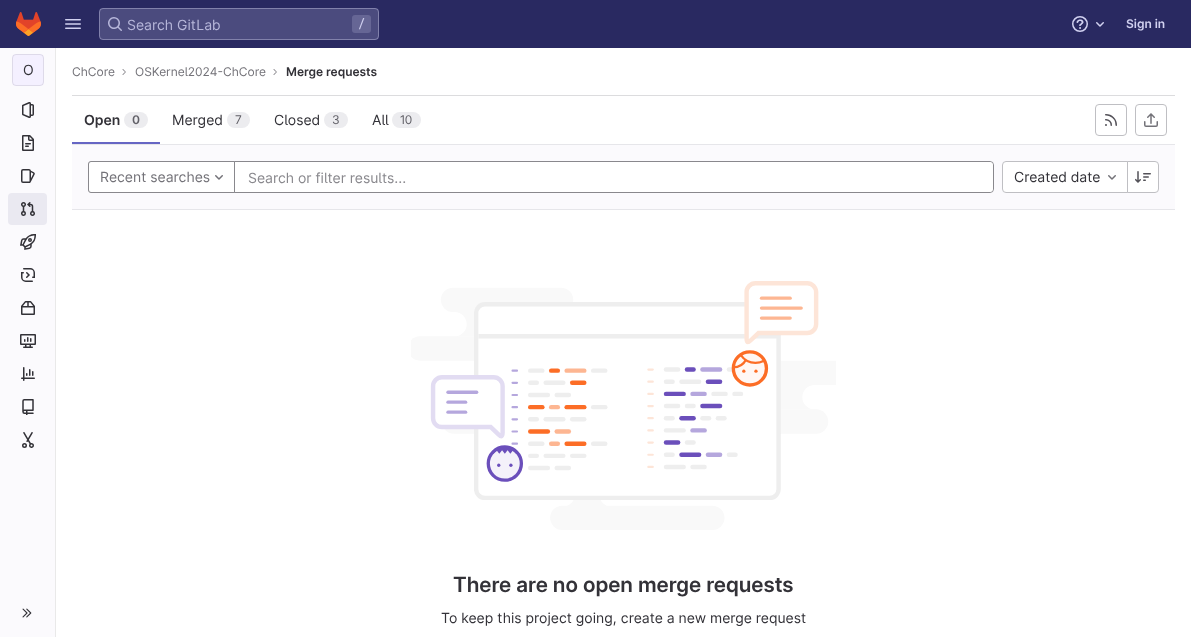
(async () => {
  const canvas = document.querySelector("canvas");
  canvas.width = 1191;
  canvas.height = 637;
  const ctx = canvas.getContext("2d");
  ctx.miterLimit = 4;
  ctx.fontKerning = "normal";
  async function loadImage(src) {
    const img = new Image();
    img.src = src;
    await img.decode();
    return img;
  }

  ctx.fillStyle = "#ffffff";
  ctx.fillRect(0, 0, 1191, 637);
  ctx.fillStyle = "#292961";
  ctx.fillRect(0, 0, 1191, 48);
  ctx.drawImage(await loadImage("img/1.png"), 16, 12, 25, 24);
  ctx.drawImage(await loadImage("img/2.png"), 65, 19, 16, 10);
  ctx.fillStyle = "#4b4b7e";
  ctx.beginPath();
  ctx.roundRect(99, 8, 280, 32, 4);
  ctx.fill();
  ctx.beginPath();
  ctx.roundRect(99.5, 8.5, 279, 31, 3.5);
  ctx.strokeStyle = "rgba(209, 209, 240, 0.4)";
  ctx.stroke();
  ctx.drawImage(await loadImage("img/3.png"), 108, 17, 14, 14);
  ctx.fillStyle = "#666695";
  ctx.beginPath();
  ctx.roundRect(352, 15, 19, 18, 3);
  ctx.fill();
  ctx.drawImage(await loadImage("img/4.png"), 1072, 16, 16, 16);
  ctx.drawImage(await loadImage("img/5.png"), 1096, 22, 8, 5);
  ctx.fillStyle = "#fbfafd";
  ctx.fillRect(0, 48, 55, 589);
  ctx.fillStyle = "#e9e9e9";
  ctx.fillRect(55, 48, 1, 589);
  ctx.fillStyle = "#f4f0ff";
  ctx.beginPath();
  ctx.roundRect(12, 54, 32, 32, 4);
  ctx.fill();
  ctx.beginPath();
  ctx.roundRect(12.5, 54.5, 31, 31, 3.5);
  ctx.strokeStyle = "rgba(31, 30, 36, 0.1)";
  ctx.stroke();
  ctx.drawImage(await loadImage("img/6.png"), 22, 102, 12, 16);
  ctx.drawImage(await loadImage("img/7.png"), 22, 135, 12, 16);
  ctx.drawImage(await loadImage("img/8.png"), 21, 169, 14, 14);
  ctx.fillStyle = "#eae9f1";
  ctx.beginPath();
  ctx.roundRect(8, 193, 39, 32, 4);
  ctx.fill();
  ctx.drawImage(await loadImage("img/9.png"), 21, 202, 14, 14);
  ctx.drawImage(await loadImage("img/10.png"), 20, 234, 16, 16);
  ctx.drawImage(await loadImage("img/11.png"), 21, 268, 14, 14);
  ctx.drawImage(await loadImage("img/12.png"), 21, 301, 14, 14);
  ctx.drawImage(await loadImage("img/13.png"), 20, 334, 16, 14);
  ctx.drawImage(await loadImage("img/14.png"), 21, 367, 14, 14);
  ctx.drawImage(await loadImage("img/15.png"), 22, 399, 12, 16);
  ctx.drawImage(await loadImage("img/16.png"), 22, 432, 12, 16);
  ctx.drawImage(await loadImage("img/17.png"), 22, 608, 10, 10);
  ctx.fillStyle = "#dcdcde";
  ctx.fillRect(72, 95, 1103, 1);
  ctx.drawImage(await loadImage("img/18.png"), 122, 69, 4, 6);
  ctx.drawImage(await loadImage("img/18.png"), 273, 69, 4, 6);
  ctx.fillStyle = "#6666c4";
  ctx.fillRect(72, 142, 88, 2);
  ctx.fillStyle = "#ececef";
  ctx.beginPath();
  ctx.roundRect(124, 112, 24, 16, 8);
  ctx.fill();
  ctx.beginPath();
  ctx.roundRect(227, 112, 23, 16, 8);
  ctx.fill();
  ctx.beginPath();
  ctx.roundRect(324, 112, 24, 16, 8);
  ctx.fill();
  ctx.beginPath();
  ctx.roundRect(392, 112, 29, 16, 8);
  ctx.fill();
  ctx.beginPath();
  ctx.roundRect(1095.5, 104.5, 31, 31, 3.5);
  ctx.strokeStyle = "#bfbfc3";
  ctx.stroke();
  ctx.drawImage(await loadImage("img/19.png"), 1105, 114, 12, 12);
  ctx.beginPath();
  ctx.roundRect(1135.5, 104.5, 31, 31, 3.5);
  ctx.stroke();
  ctx.drawImage(await loadImage("img/20.png"), 1144, 113, 14, 14);
  for (const [x, y, w, h, color] of [
    [72, 145, 1103, 64, "#fbfafd"],
    [72, 144, 1103, 1, "#e6e6ea"],
    [72, 209, 1103, 1, "#e6e6ea"],
  ]) {
    ctx.fillStyle = color;
    ctx.fillRect(x, y, w, h);
  }
  ctx.fillStyle = "#ffffff";
  ctx.beginPath();
  ctx.roundRect(88.5, 161.5, 905, 31, 3.5);
  ctx.fill();
  ctx.strokeStyle = "#89888d";
  ctx.stroke();
  ctx.beginPath();
  ctx.roundRect(88.5, 161.5, 146, 31, [2.5, 0, 0, 2.5]);
  ctx.fill();
  ctx.stroke();
  ctx.drawImage(await loadImage("img/21.png"), 215, 175, 8, 5);
  ctx.beginPath();
  ctx.roundRect(235, 162, 758, 30, 4);
  ctx.fill();
  ctx.beginPath();
  ctx.roundRect(1002.5, 161.5, 125, 31, [3.5, 0, 0, 3.5]);
  ctx.fill();
  ctx.strokeStyle = "#bfbfc3";
  ctx.stroke();
  ctx.drawImage(await loadImage("img/21.png"), 1108, 175, 8, 5);
  ctx.beginPath();
  ctx.roundRect(1127.5, 161.5, 31, 31, [0, 3.5, 3.5, 0]);
  ctx.fill();
  ctx.stroke();
  ctx.drawImage(await loadImage("img/22.png"), 1135, 171, 16, 12);
  ctx.drawImage(await loadImage("img/23.png"), 411, 281, 425, 249);
  ctx.font = "14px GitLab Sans";
  ctx.fillStyle = "#b6b6d9";
  ctx.fillText("Search GitLab", 127, 30);
  ctx.font = "12px JetBrains Mono";
  ctx.fillStyle = "#d1d1f0";
  ctx.fillText("/", 358, 28);
  ctx.font = "600 12px GitLab Sans";
  ctx.fillText("Sign in", 1126, 28);
  ctx.font = "14px GitLab Sans";
  ctx.fillStyle = "#333238";
  ctx.fillText("O", 23, 75);
  ctx.font = "12px GitLab Sans";
  ctx.fillStyle = "#737278";
  ctx.fillText("ChCore", 72, 76);
  ctx.fillText("OSKernel2024-ChCore", 135, 76);
  ctx.font = "600 12px GitLab Sans";
  ctx.fillStyle = "#333238";
  ctx.fillText("Merge requests", 286, 76);
  ctx.font = "600 14px GitLab Sans";
  ctx.fillText("Open", 84, 125);
  ctx.font = "600 12px GitLab Sans";
  ctx.fillStyle = "#626168";
  ctx.fillText("0", 132, 124);
  ctx.font = "14px GitLab Sans";
  ctx.fillStyle = "#333238";
  ctx.fillText("Merged", 172, 125);
  ctx.font = "12px GitLab Sans";
  ctx.fillStyle = "#626168";
  ctx.fillText("7", 235, 124);
  ctx.font = "14px GitLab Sans";
  ctx.fillStyle = "#333238";
  ctx.fillText("Closed", 274, 125);
  ctx.font = "12px GitLab Sans";
  ctx.fillStyle = "#626168";
  ctx.fillText("3", 332, 124);
  ctx.font = "14px GitLab Sans";
  ctx.fillStyle = "#333238";
  ctx.fillText("All", 372, 125);
  ctx.font = "12px GitLab Sans";
  ctx.fillStyle = "#626168";
  ctx.fillText("10", 400, 124);
  ctx.font = "14px GitLab Sans";
  ctx.fillStyle = "#737278";
  ctx.fillText("Recent searches", 100, 182);
  ctx.fillStyle = "#89888d";
  ctx.fillText("Search or filter results...", 248, 183);
  ctx.fillStyle = "#333238";
  ctx.fillText("Created date", 1014, 182);
  ctx.font = "600 21px 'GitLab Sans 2'";
  ctx.fillText("There are no open merge requests", 453, 592);
  ctx.font = "14px GitLab Sans";
  ctx.fillText("To keep this project going, create a new merge request", 441, 623);
})();
